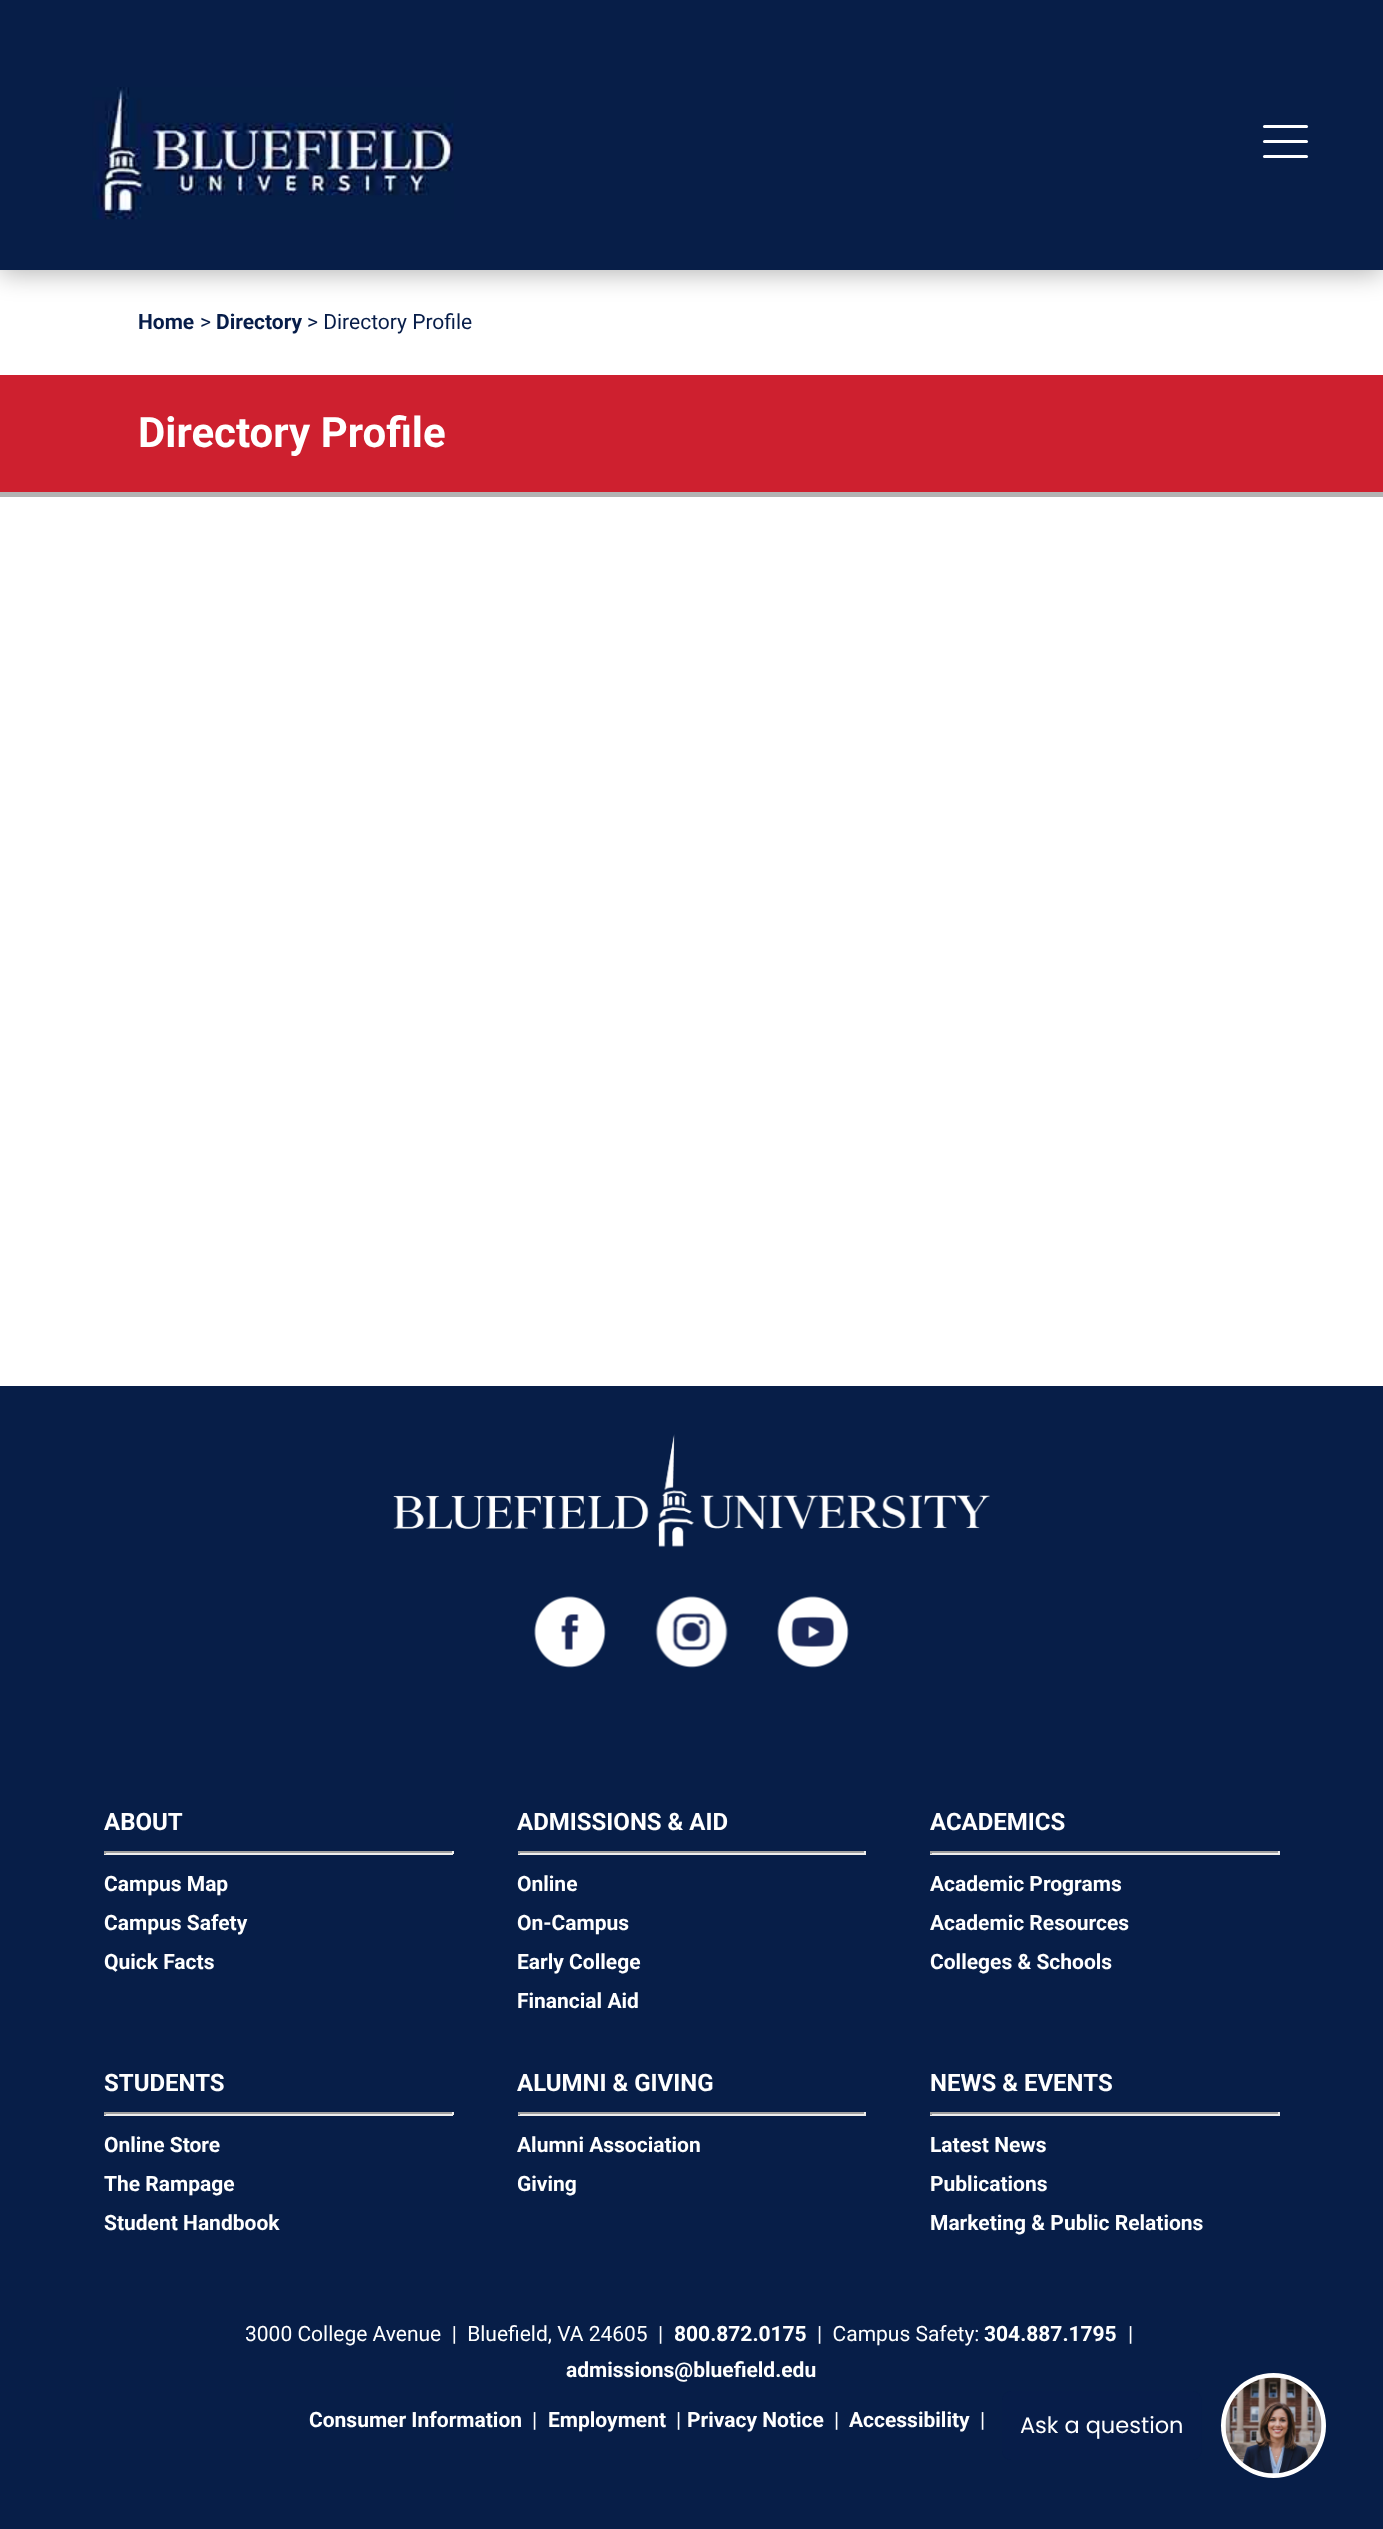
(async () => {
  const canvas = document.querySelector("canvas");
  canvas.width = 1383;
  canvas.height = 2529;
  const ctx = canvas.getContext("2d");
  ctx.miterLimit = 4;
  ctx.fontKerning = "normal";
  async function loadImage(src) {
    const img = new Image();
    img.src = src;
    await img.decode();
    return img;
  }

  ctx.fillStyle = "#ffffff";
  ctx.fillRect(0, 0, 1383, 2529);
  ctx.fillStyle = "rgba(0, 0, 0, 0.3)";
  ctx.filter = "blur(13.5px)";
  ctx.beginPath();
  ctx.rect(0, 3, 1383, 270);
  ctx.fill();
  ctx.filter = "none";
  ctx.fillStyle = "#071e48";
  ctx.fillRect(0, 0, 1383, 270);
  ctx.drawImage(await loadImage("img/1.png"), 92, 87, 362, 133);
  ctx.fillStyle = "#ffffff";
  ctx.beginPath();
  ctx.roundRect(1263, 125, 45, 3, 1.5);
  ctx.fill();
  ctx.beginPath();
  ctx.roundRect(1263, 140, 45, 3, 1.5);
  ctx.fill();
  ctx.beginPath();
  ctx.roundRect(1263, 155, 45, 3, 1.5);
  ctx.fill();
  for (const [x, y, w, h, color] of [
    [0, 492, 1383, 5, "#b3b3b3"],
    [0, 375, 1383, 117, "#ce202f"],
    [0, 1386, 1383, 1143, "#071e48"],
  ]) {
    ctx.fillStyle = color;
    ctx.fillRect(x, y, w, h);
  }
  ctx.drawImage(await loadImage("img/2.png"), 393, 1434, 597, 113);
  ctx.drawImage(await loadImage("img/3.png"), 534, 1596, 72, 72);
  ctx.drawImage(await loadImage("img/4.png"), 655, 1596, 73, 72);
  ctx.drawImage(await loadImage("img/5.png"), 777, 1596, 72, 72);
  for (const [x, y, w, h, color] of [
    [104, 1851, 349, 2, "#9f9f9f"],
    [452, 1851, 2, 3, "#eeeeee"],
    [104, 1853, 349, 2, "#eeeeee"],
    [104, 1851, 2, 3, "#9f9f9f"],
    [518, 1851, 348, 2, "#9f9f9f"],
    [864, 1851, 2, 3, "#eeeeee"],
    [518, 1853, 348, 2, "#eeeeee"],
    [518, 1851, 2, 3, "#9f9f9f"],
    [930, 1851, 350, 2, "#9f9f9f"],
    [1278, 1851, 2, 3, "#eeeeee"],
    [930, 1853, 350, 2, "#eeeeee"],
    [930, 1851, 2, 3, "#9f9f9f"],
    [104, 2112, 349, 2, "#9f9f9f"],
    [452, 2112, 2, 3, "#eeeeee"],
    [104, 2114, 349, 2, "#eeeeee"],
    [104, 2112, 2, 3, "#9f9f9f"],
    [518, 2112, 348, 2, "#9f9f9f"],
    [864, 2112, 2, 3, "#eeeeee"],
    [518, 2114, 348, 2, "#eeeeee"],
    [518, 2112, 2, 3, "#9f9f9f"],
    [930, 2112, 350, 2, "#9f9f9f"],
    [1278, 2112, 2, 3, "#eeeeee"],
    [930, 2114, 350, 2, "#eeeeee"],
    [930, 2112, 2, 3, "#9f9f9f"],
  ]) {
    ctx.fillStyle = color;
    ctx.fillRect(x, y, w, h);
  }
  ctx.drawImage(await loadImage("img/6.png"), 1002, 2373, 324, 105);
  ctx.font = "bold 21px Roboto";
  ctx.fillStyle = "#071d49";
  ctx.fillText("Home", 138, 329);
  ctx.font = "21px Roboto";
  ctx.fillText(">", 200, 329);
  ctx.font = "bold 21px Roboto";
  ctx.fillText("Directory", 216, 329);
  ctx.font = "21px Roboto";
  ctx.fillText("> Directory Profile", 307, 329);
  ctx.font = "bold 42px Roboto";
  ctx.fillStyle = "#ffffff";
  ctx.fillText("Directory Profile", 138, 447);
  ctx.font = "bold 24px Roboto";
  ctx.fillText("ABOUT", 104, 1830);
  ctx.font = "bold 21px Roboto";
  for (const [text, x, y] of [
    ["Campus Map", 104, 1891],
    ["Campus Safety", 104, 1930],
    ["Quick Facts", 104, 1969],
  ]) {
    ctx.fillText(text, x, y);
  }
  ctx.font = "bold 24px Roboto";
  ctx.fillText("ADMISSIONS & AID", 517, 1830);
  ctx.font = "bold 21px Roboto";
  for (const [text, x, y] of [
    ["Online", 517, 1891],
    ["On-Campus", 517, 1930],
    ["Early College", 517, 1969],
    ["Financial Aid", 517, 2008],
  ]) {
    ctx.fillText(text, x, y);
  }
  ctx.font = "bold 24px Roboto";
  ctx.fillText("ACADEMICS", 930, 1830);
  ctx.font = "bold 21px Roboto";
  for (const [text, x, y] of [
    ["Academic Programs", 930, 1891],
    ["Academic Resources", 930, 1930],
    ["Colleges & Schools", 930, 1969],
  ]) {
    ctx.fillText(text, x, y);
  }
  ctx.font = "bold 24px Roboto";
  ctx.fillText("STUDENTS", 104, 2091);
  ctx.font = "bold 21px Roboto";
  for (const [text, x, y] of [
    ["Online Store", 104, 2152],
    ["The Rampage", 104, 2191],
    ["Student Handbook", 104, 2230],
  ]) {
    ctx.fillText(text, x, y);
  }
  ctx.font = "bold 24px Roboto";
  ctx.fillText("ALUMNI & GIVING", 517, 2091);
  ctx.font = "bold 21px Roboto";
  ctx.fillText("Alumni Association", 517, 2152);
  ctx.fillText("Giving", 517, 2191);
  ctx.font = "bold 24px Roboto";
  ctx.fillText("NEWS & EVENTS", 930, 2091);
  ctx.font = "bold 21px Roboto";
  for (const [text, x, y] of [
    ["Latest News", 930, 2152],
    ["Publications", 930, 2191],
    ["Marketing & Public Relations", 930, 2230],
  ]) {
    ctx.fillText(text, x, y);
  }
  ctx.font = "21px Roboto";
  ctx.fillText("3000 College Avenue  |  Bluefield, VA 24605  |", 245, 2341);
  ctx.font = "bold 21px Roboto";
  ctx.fillText("800.872.0175", 674, 2341);
  ctx.font = "21px Roboto";
  ctx.fillText("|  Campus Safety:", 817, 2341);
  ctx.font = "bold 21px Roboto";
  ctx.fillText("304.887.1795", 984, 2341);
  ctx.font = "21px Roboto";
  ctx.fillText("|", 1128, 2341);
  ctx.font = "bold 21px Roboto";
  ctx.fillText("admissions@bluefield.edu", 566, 2377);
  ctx.fillText("Consumer Information", 309, 2427);
  ctx.font = "21px Roboto";
  ctx.fillText("|", 532, 2427);
  ctx.font = "bold 21px Roboto";
  ctx.fillText("Employment", 548, 2427);
  ctx.font = "21px Roboto";
  ctx.fillText("|", 676, 2427);
  ctx.font = "bold 21px Roboto";
  ctx.fillText("Privacy Notice", 687, 2427);
  ctx.font = "21px Roboto";
  ctx.fillText("|", 834, 2427);
  ctx.font = "bold 21px Roboto";
  ctx.fillText("Accessibility", 849, 2427);
  ctx.font = "21px Roboto";
  ctx.fillText("|", 980, 2427);
})();
